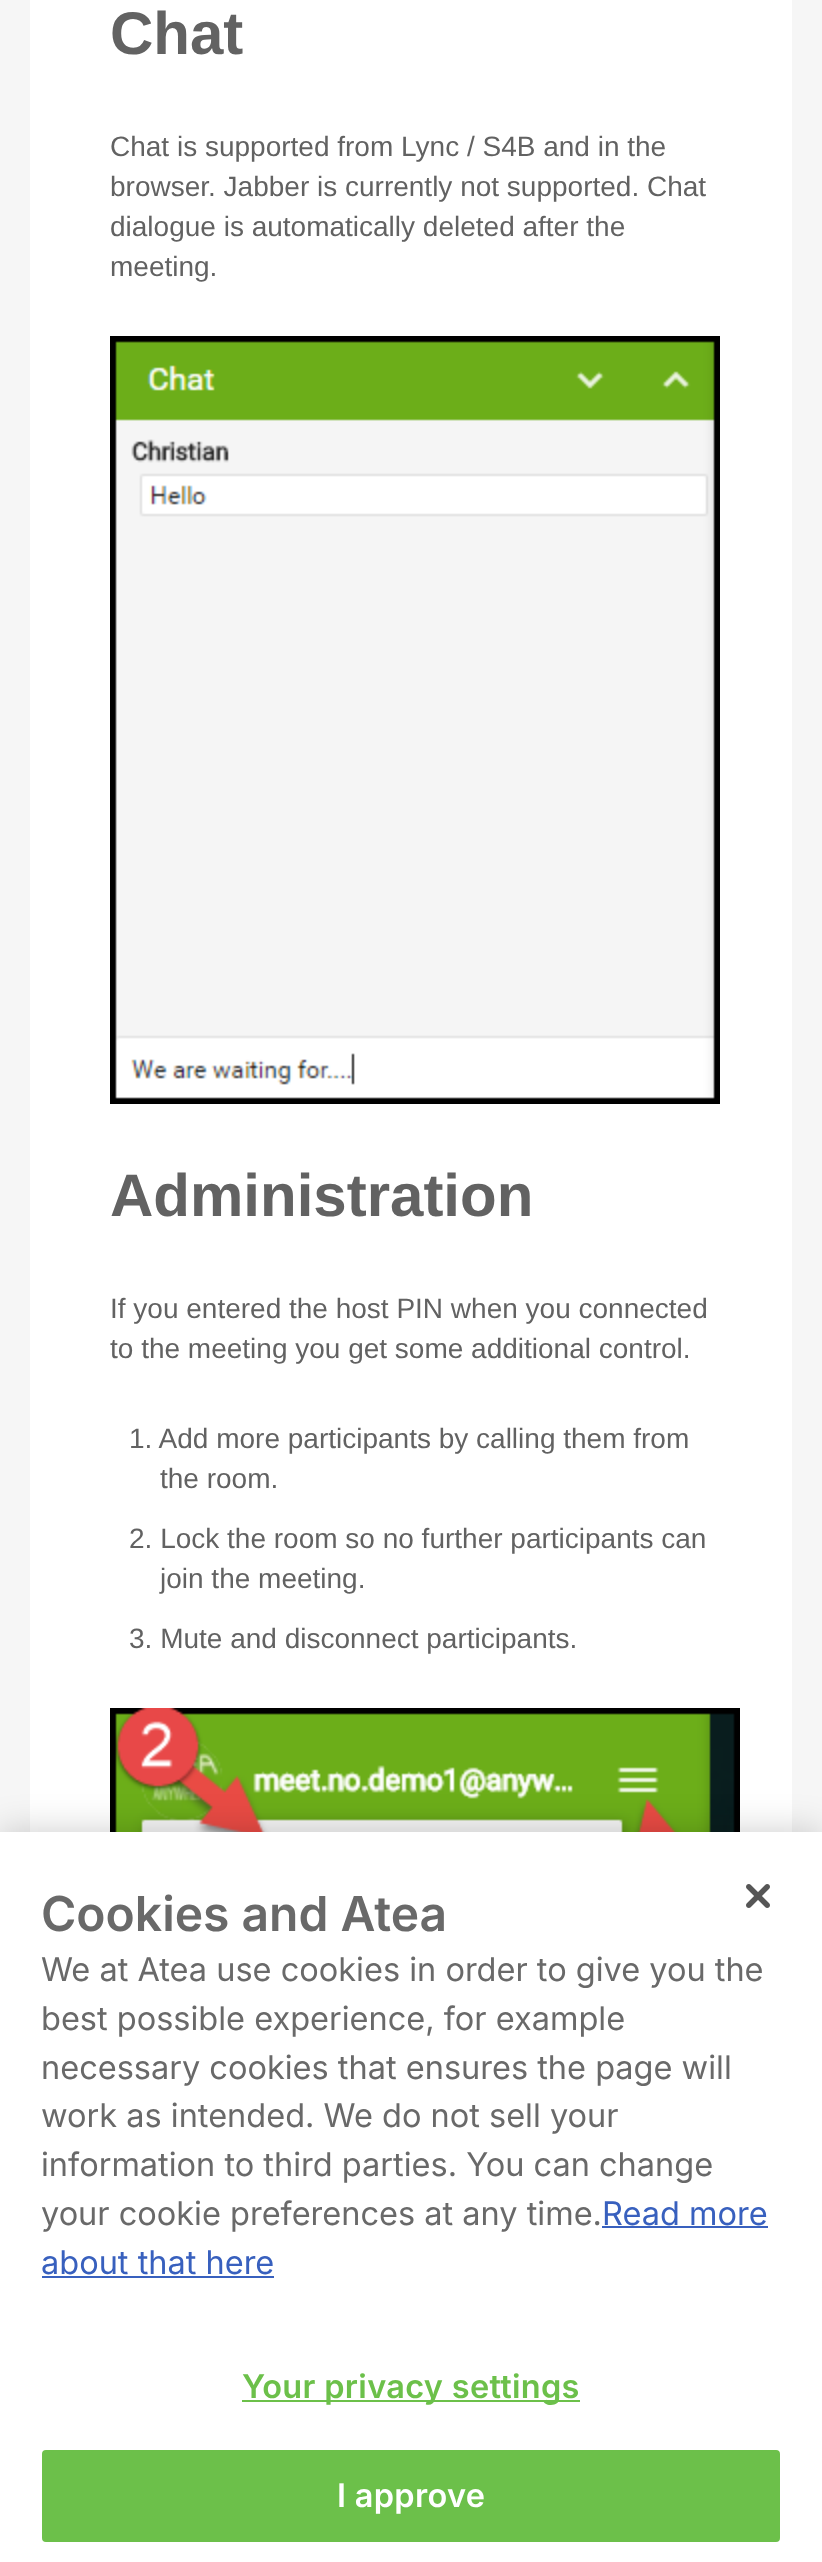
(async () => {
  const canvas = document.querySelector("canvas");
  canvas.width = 822;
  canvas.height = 2562;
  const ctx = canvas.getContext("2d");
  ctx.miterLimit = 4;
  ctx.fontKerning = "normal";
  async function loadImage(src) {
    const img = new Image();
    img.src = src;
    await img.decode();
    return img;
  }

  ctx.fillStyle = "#f6f6f6";
  ctx.fillRect(0, 0, 822, 2562);
  ctx.fillStyle = "#ffffff";
  ctx.fillRect(30, 0, 762, 1832);
  ctx.drawImage(await loadImage("img/1.png"), 110, 336, 610, 768);
  ctx.drawImage(await loadImage("img/2.png"), 110, 1708, 630, 124);
  ctx.fillStyle = "rgba(0, 0, 0, 0.2)";
  ctx.filter = "blur(18px)";
  ctx.beginPath();
  ctx.rect(0, 1832, 822, 730);
  ctx.fill();
  ctx.filter = "none";
  ctx.fillStyle = "#ffffff";
  ctx.fillRect(0, 1832, 822, 730);
  ctx.drawImage(await loadImage("img/3.png"), 746, 1884, 24, 24);
  for (const [x, y, w, h, color] of [
    [602, 2226, 166, 2, "#3860be"],
    [42, 2276, 232, 2, "#3860be"],
    [242, 2400, 338, 2, "#6cc04a"],
  ]) {
    ctx.fillStyle = color;
    ctx.fillRect(x, y, w, h);
  }
  ctx.beginPath();
  ctx.roundRect(43, 2451, 736, 90, 3);
  ctx.fill();
  ctx.strokeStyle = "#6cc04a";
  ctx.lineWidth = 2;
  ctx.stroke();
  ctx.font = "bold 60px Liberation Sans";
  ctx.fillStyle = "#626262";
  ctx.fillText("Chat", 110, 54);
  ctx.font = "28px Liberation Sans";
  for (const [text, x, y] of [
    ["Chat is supported from Lync / S4B and in the", 110, 156],
    ["browser. Jabber is currently not supported. Chat", 110, 196],
    ["dialogue is automatically deleted after the", 110, 236],
    ["meeting.", 110, 276],
  ]) {
    ctx.fillText(text, x, y);
  }
  ctx.font = "bold 60px Liberation Sans";
  ctx.fillText("Administration", 110, 1216);
  ctx.font = "28px Liberation Sans";
  for (const [text, x, y] of [
    ["If you entered the host PIN when you connected", 110, 1318],
    ["to the meeting you get some additional control.", 110, 1358],
    ["1. Add more participants by calling them from", 129, 1448],
    ["the room.", 160, 1488],
    ["2. Lock the room so no further participants can", 129, 1548],
    ["join the meeting.", 160, 1588],
    ["3. Mute and disconnect participants.", 129, 1648],
  ]) {
    ctx.fillText(text, x, y);
  }
  ctx.font = "600 48px Inter";
  ctx.fillStyle = "#696969";
  ctx.fillText("Cookies and Atea", 41, 1931);
  ctx.font = "32.5px Inter";
  for (const [text, x, y] of [
    ["We at Atea use cookies in order to give you the", 41, 1981],
    ["best possible experience, for example", 41, 2030],
    ["necessary cookies that ensures the page will", 41, 2079],
    ["work as intended. We do not sell your", 41, 2127],
    ["information to third parties. You can change", 41, 2176],
    ["your cookie preferences at any time.", 41, 2225],
  ]) {
    ctx.fillText(text, x, y);
  }
  ctx.fillStyle = "#3860be";
  ctx.fillText("Read more", 602, 2225);
  ctx.fillText("about that here", 41, 2274);
  ctx.letterSpacing = "0.3px";
  ctx.font = "600 32.5px Inter";
  ctx.fillStyle = "#6cc04a";
  ctx.fillText("Your privacy settings", 242, 2398);
  ctx.fillStyle = "#ffffff";
  ctx.fillText("I approve", 337, 2507);
})();
